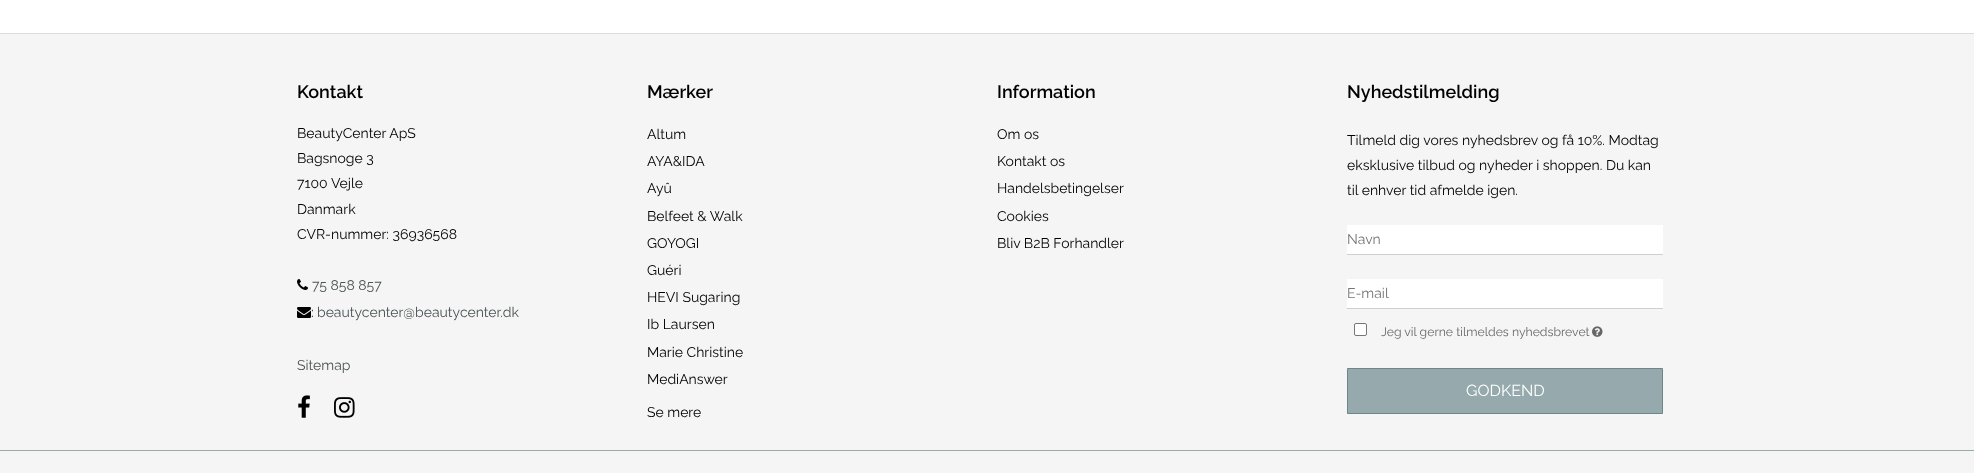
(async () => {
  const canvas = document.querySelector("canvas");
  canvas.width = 1974;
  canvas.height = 473;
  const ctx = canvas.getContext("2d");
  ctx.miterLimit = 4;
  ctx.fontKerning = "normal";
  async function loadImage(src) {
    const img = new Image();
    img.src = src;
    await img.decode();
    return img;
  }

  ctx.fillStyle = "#ffffff";
  ctx.fillRect(0, 0, 1974, 473);
  ctx.fillStyle = "#f5f5f5";
  ctx.fillRect(0, 34, 1974, 439);
  ctx.fillStyle = "#dcdcdc";
  ctx.fillRect(0, 33, 1974, 1);
  ctx.drawImage(await loadImage("img/1.png"), 297, 279, 11, 11);
  ctx.drawImage(await loadImage("img/2.png"), 297, 307, 14, 11);
  ctx.drawImage(await loadImage("img/3.png"), 298, 395, 12, 23);
  ctx.drawImage(await loadImage("img/4.png"), 334, 397, 21, 21);
  for (const [x, y, w, h, color] of [
    [1347, 225, 316, 29, "#ffffff"],
    [1347, 254, 316, 1, "#cfcfcf"],
    [1347, 279, 316, 29, "#ffffff"],
    [1347, 308, 316, 1, "#cfcfcf"],
  ]) {
    ctx.fillStyle = color;
    ctx.fillRect(x, y, w, h);
  }
  ctx.fillStyle = "#ffffff";
  ctx.beginPath();
  ctx.roundRect(1354.5, 323.5, 12, 12, 1.5);
  ctx.fill();
  ctx.strokeStyle = "#767676";
  ctx.stroke();
  ctx.drawImage(await loadImage("img/5.png"), 1592, 326, 11, 11);
  ctx.fillStyle = "#96aaad";
  ctx.beginPath();
  ctx.rect(1347.5, 368.5, 315, 45);
  ctx.fill();
  ctx.strokeStyle = "#6c868a";
  ctx.stroke();
  ctx.fillStyle = "#96adad";
  ctx.fillRect(0, 450, 1974, 1);
  ctx.font = "600 18px Raleway";
  ctx.fillStyle = "#000000";
  ctx.fillText("Kontakt", 297, 98);
  ctx.font = "14px Raleway";
  for (const [text, x, y] of [
    ["BeautyCenter ApS", 297, 138],
    ["Bagsnoge 3", 297, 163],
    ["7100", 297, 188],
    ["Vejle", 331, 188],
    ["Danmark", 297, 214],
    ["CVR-nummer: 36936568", 297, 239],
  ]) {
    ctx.fillText(text, x, y);
  }
  ctx.fillStyle = "#4a5354";
  ctx.fillText("75 858 857", 312, 290);
  ctx.fillStyle = "#000000";
  ctx.fillText(":", 311, 317);
  ctx.fillStyle = "#4a5354";
  ctx.fillText("beautycenter@beautycenter.dk", 317, 317);
  ctx.fillText("Sitemap", 297, 370);
  ctx.font = "600 18px Raleway";
  ctx.fillStyle = "#000000";
  ctx.fillText("Mærker", 647, 98);
  ctx.font = "14px Raleway";
  for (const [text, x, y] of [
    ["Altum", 647, 139],
    ["AYA&IDA", 647, 166],
    ["Ayû", 647, 193],
    ["Belfeet & Walk", 647, 221],
    ["GOYOGI", 647, 248],
    ["Guéri", 647, 275],
    ["HEVI Sugaring", 647, 302],
    ["Ib Laursen", 647, 329],
    ["Marie Christine", 647, 357],
    ["MediAnswer", 647, 384],
    ["Se mere", 647, 417],
  ]) {
    ctx.fillText(text, x, y);
  }
  ctx.font = "600 18px Raleway";
  ctx.fillText("Information", 997, 98);
  ctx.font = "14px Raleway";
  for (const [text, x, y] of [
    ["Om os", 997, 139],
    ["Kontakt os", 997, 166],
    ["Handelsbetingelser", 997, 193],
    ["Cookies", 997, 221],
    ["Bliv B2B Forhandler", 997, 248],
  ]) {
    ctx.fillText(text, x, y);
  }
  ctx.font = "600 18px Raleway";
  ctx.fillText("Nyhedstilmelding", 1347, 98);
  ctx.font = "14px Raleway";
  for (const [text, x, y] of [
    ["Tilmeld dig vores nyhedsbrev og få 10%. Modtag", 1347, 145],
    ["eksklusive tilbud og nyheder i shoppen. Du kan", 1347, 170],
    ["til enhver tid afmelde igen.", 1347, 195],
  ]) {
    ctx.fillText(text, x, y);
  }
  ctx.fillStyle = "#757575";
  ctx.fillText("Navn", 1347, 244);
  ctx.fillText("E-mail", 1347, 298);
  ctx.font = "12.25px Raleway";
  ctx.fillStyle = "#656764";
  ctx.fillText("Jeg vil gerne tilmeldes nyhedsbrevet", 1381, 336);
  ctx.font = "16px Raleway";
  ctx.fillStyle = "#ffffff";
  ctx.fillText("GODKEND", 1466, 396);
})();
